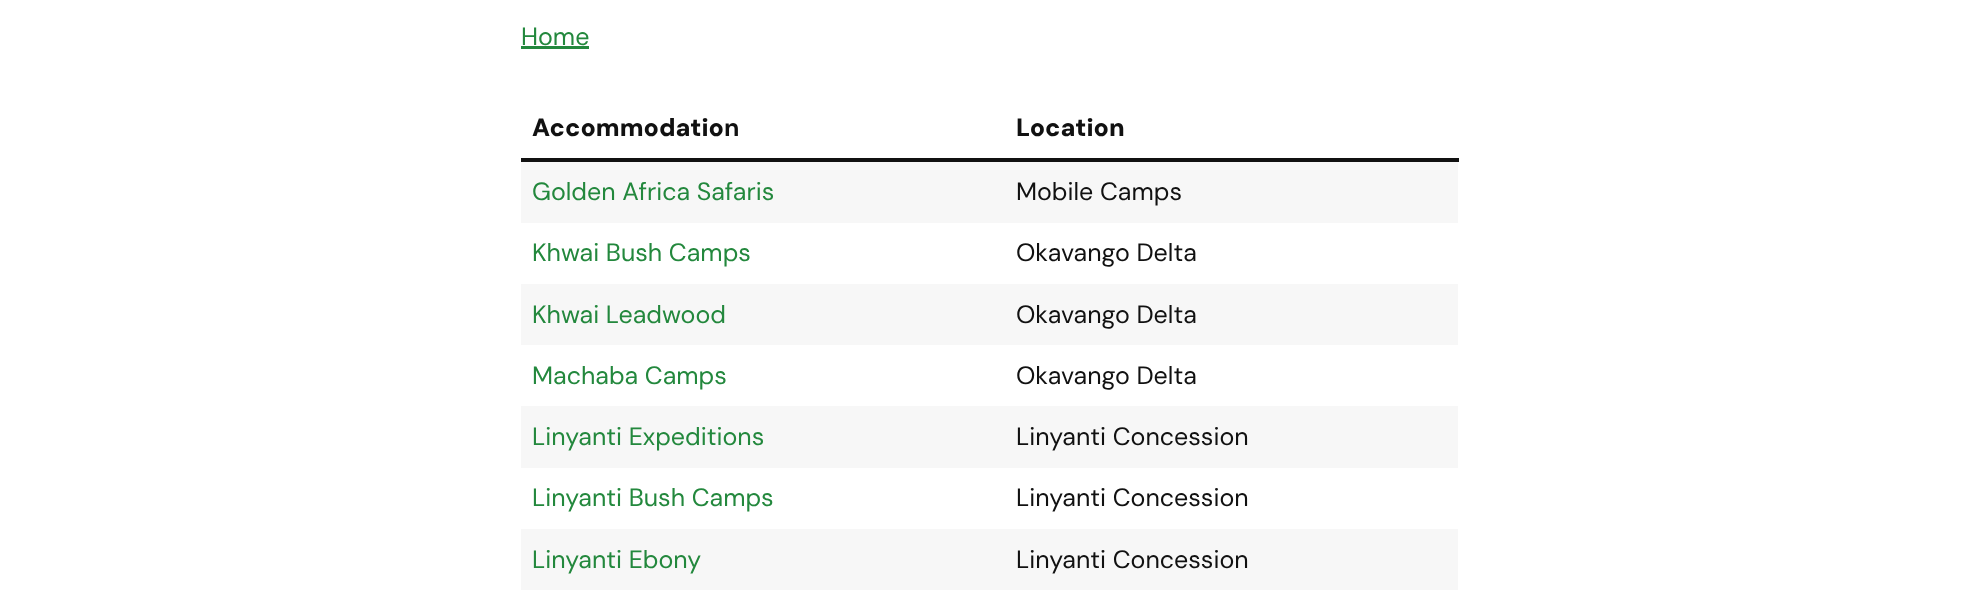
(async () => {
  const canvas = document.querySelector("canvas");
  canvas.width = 1978;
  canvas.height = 615;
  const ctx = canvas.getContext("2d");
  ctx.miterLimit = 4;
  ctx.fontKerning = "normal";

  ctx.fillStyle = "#ffffff";
  ctx.fillRect(0, 0, 1978, 615);
  for (const [x, y, w, h, color] of [
    [521, 46, 68, 3, "#23883d"],
    [521, 158, 938, 4, "#111111"],
    [521, 162, 937, 61, "#f7f7f7"],
    [521, 284, 937, 61, "#f7f7f7"],
    [521, 406, 937, 62, "#f7f7f7"],
    [521, 529, 937, 61, "#f7f7f7"],
  ]) {
    ctx.fillStyle = color;
    ctx.fillRect(x, y, w, h);
  }
  ctx.font = "25px DM Sans";
  ctx.fillStyle = "#23883d";
  ctx.fillText("Home", 521, 45);
  ctx.font = "900 25px DM Sans";
  ctx.fillStyle = "#111111";
  ctx.fillText("Accommodatio", 532, 136);
  ctx.font = "bold 25px DM Sans";
  ctx.fillText("n", 724, 136);
  ctx.font = "900 25px DM Sans";
  ctx.fillText("Location", 1016, 136);
  ctx.font = "25px DM Sans";
  ctx.fillStyle = "#23883d";
  ctx.fillText("Golden Africa Safaris", 532, 200);
  ctx.fillStyle = "#111111";
  ctx.fillText("Mobile Camps", 1016, 200);
  ctx.fillStyle = "#23883d";
  ctx.fillText("Khwai Bush Camps", 532, 261);
  ctx.fillStyle = "#111111";
  ctx.fillText("Okavango Delta", 1016, 261);
  ctx.fillStyle = "#23883d";
  ctx.fillText("Khwai Leadwood", 532, 323);
  ctx.fillStyle = "#111111";
  ctx.fillText("Okavango Delta", 1016, 323);
  ctx.fillStyle = "#23883d";
  ctx.fillText("Machaba Camps", 532, 384);
  ctx.fillStyle = "#111111";
  ctx.fillText("Okavango Delta", 1016, 384);
  ctx.fillStyle = "#23883d";
  ctx.fillText("Linyanti Expeditions", 532, 445);
  ctx.fillStyle = "#111111";
  ctx.fillText("Linyanti Concession", 1016, 445);
  ctx.fillStyle = "#23883d";
  ctx.fillText("Linyanti Bush Camps", 532, 506);
  ctx.fillStyle = "#111111";
  ctx.fillText("Linyanti Concession", 1016, 506);
  ctx.fillStyle = "#23883d";
  ctx.fillText("Linyanti Ebony", 532, 568);
  ctx.fillStyle = "#111111";
  ctx.fillText("Linyanti Concession", 1016, 568);
})();
